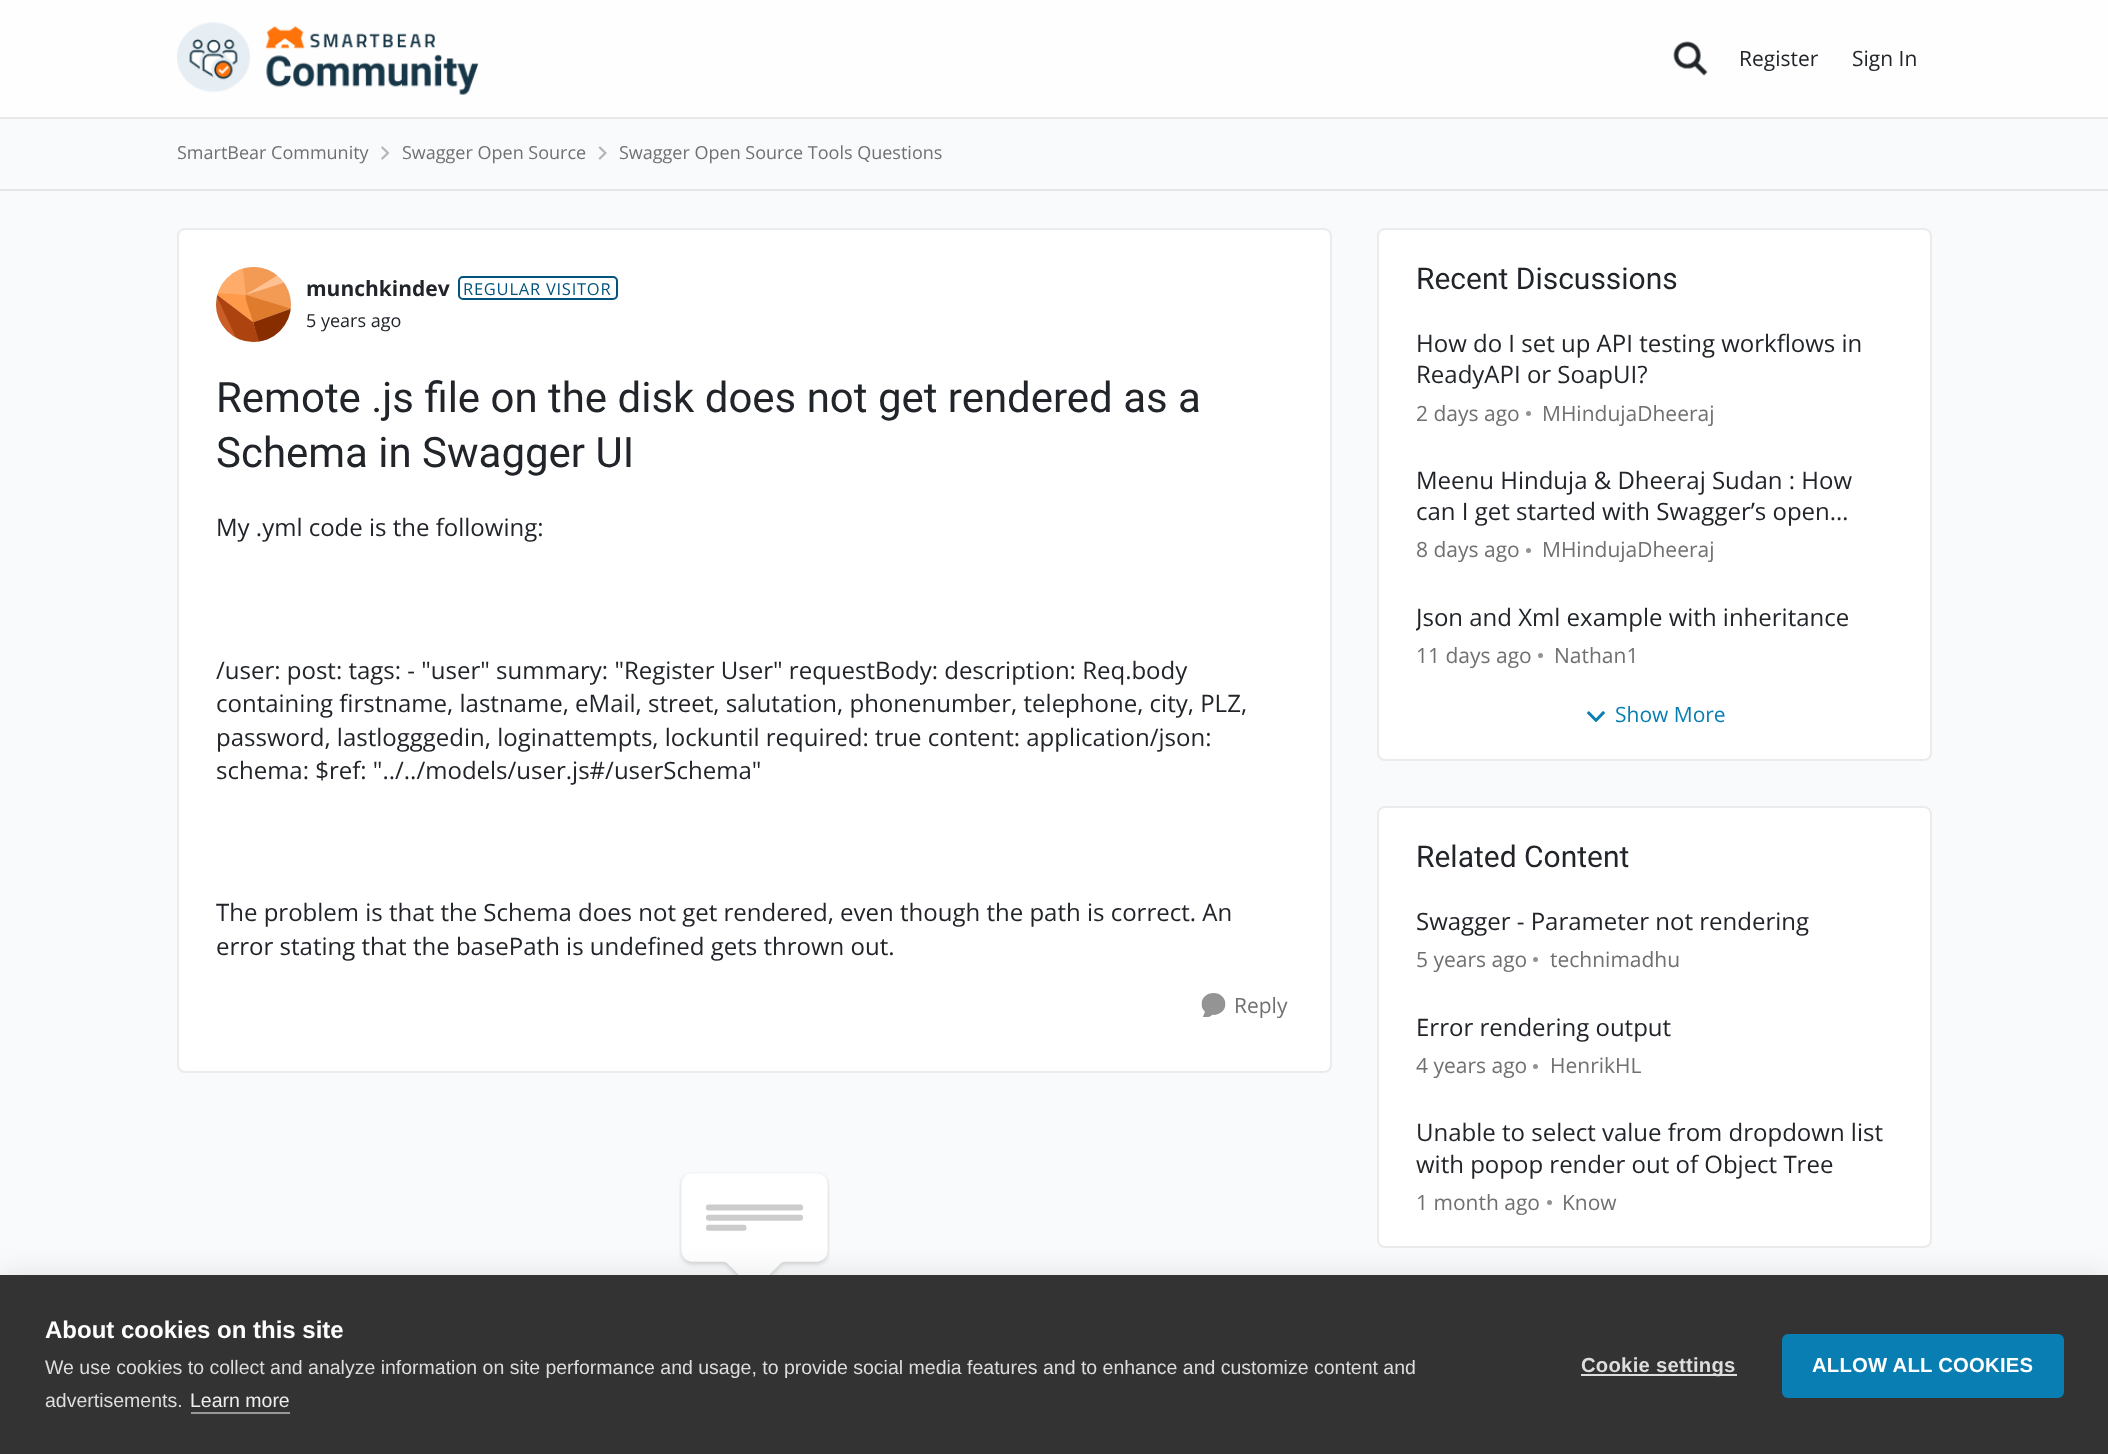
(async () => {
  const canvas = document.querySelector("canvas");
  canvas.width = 2108;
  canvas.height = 1454;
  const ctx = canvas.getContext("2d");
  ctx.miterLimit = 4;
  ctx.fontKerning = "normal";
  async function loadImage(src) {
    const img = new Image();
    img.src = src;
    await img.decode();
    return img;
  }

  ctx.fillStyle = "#f8fafb";
  ctx.fillRect(0, 0, 2108, 1454);
  ctx.fillStyle = "rgba(255, 255, 255, 0.8)";
  ctx.fillRect(0, 0, 2108, 117);
  ctx.fillStyle = "#e9e9e9";
  ctx.fillRect(0, 117, 2108, 2);
  ctx.drawImage(await loadImage("img/1.png"), 177, 22, 302, 73);
  ctx.drawImage(await loadImage("img/2.png"), 1673, 41, 35, 35);
  ctx.fillStyle = "#e4e6e7";
  ctx.fillRect(0, 189, 2108, 2);
  ctx.drawImage(await loadImage("img/3.png"), 381, 146, 9, 14);
  ctx.drawImage(await loadImage("img/4.png"), 598, 146, 9, 14);
  ctx.fillStyle = "#ffffff";
  ctx.beginPath();
  ctx.roundRect(177, 228, 1155, 845, 8);
  ctx.fill();
  ctx.beginPath();
  ctx.roundRect(178, 229, 1153, 843, 7);
  ctx.strokeStyle = "rgba(0, 0, 0, 0.08)";
  ctx.lineWidth = 2;
  ctx.stroke();
  ctx.fillStyle = "#d9d9d9";
  ctx.beginPath();
  ctx.arc(253.5, 304.5, 37.5, 0, Math.PI * 2);
  ctx.fill();
  ctx.drawImage(await loadImage("img/5.png"), 216, 267, 75, 75);
  ctx.beginPath();
  ctx.roundRect(459, 277, 158, 22, 4);
  ctx.strokeStyle = "#00537c";
  ctx.stroke();
  ctx.drawImage(await loadImage("img/6.png"), 1201, 993, 25, 24);
  ctx.drawImage(await loadImage("img/7.png"), 679, 1172, 151, 103);
  ctx.fillStyle = "#ffffff";
  ctx.beginPath();
  ctx.roundRect(1377, 228, 555, 533, 8);
  ctx.fill();
  ctx.beginPath();
  ctx.roundRect(1378, 229, 553, 531, 7);
  ctx.strokeStyle = "rgba(0, 0, 0, 0.08)";
  ctx.stroke();
  ctx.fillStyle = "#949494";
  ctx.beginPath();
  ctx.arc(1528.5, 413.5, 2.5, 0, Math.PI * 2);
  ctx.fill();
  ctx.beginPath();
  ctx.arc(1528.5, 550.5, 2.5, 0, Math.PI * 2);
  ctx.fill();
  ctx.beginPath();
  ctx.arc(1540.5, 655.5, 2.5, 0, Math.PI * 2);
  ctx.fill();
  ctx.drawImage(await loadImage("img/8.png"), 1587, 711, 18, 11);
  ctx.fillStyle = "#ffffff";
  ctx.beginPath();
  ctx.roundRect(1377, 806, 555, 442, 8);
  ctx.fill();
  ctx.beginPath();
  ctx.roundRect(1378, 807, 553, 440, 7);
  ctx.stroke();
  ctx.fillStyle = "#949494";
  ctx.beginPath();
  ctx.arc(1535.5, 959.5, 2.5, 0, Math.PI * 2);
  ctx.fill();
  ctx.beginPath();
  ctx.arc(1535.5, 1066.5, 2.5, 0, Math.PI * 2);
  ctx.fill();
  ctx.beginPath();
  ctx.arc(1549.5, 1202.5, 2.5, 0, Math.PI * 2);
  ctx.fill();
  ctx.fillStyle = "rgba(0, 0, 0, 0.1)";
  ctx.filter = "blur(15px)";
  ctx.beginPath();
  ctx.rect(0, 1275, 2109, 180);
  ctx.fill();
  ctx.filter = "none";
  for (const [x, y, w, h, color] of [
    [0, 1275, 2108, 179, "#333333"],
    [191, 1412, 99, 2, "#999999"],
    [1581, 1374, 156, 2, "#dddddd"],
  ]) {
    ctx.fillStyle = color;
    ctx.fillRect(x, y, w, h);
  }
  ctx.fillStyle = "#097eb2";
  ctx.beginPath();
  ctx.roundRect(1782, 1334, 282, 64, 6);
  ctx.fill();
  ctx.font = "21px Open Sans";
  ctx.fillStyle = "#212429";
  ctx.fillText("Register", 1739, 66);
  ctx.fillText("Sign In", 1852, 66);
  ctx.font = "18px Open Sans";
  ctx.fillStyle = "#707070";
  for (const [text, x, y] of [
    ["SmartBear Community", 177, 159],
    ["Swagger Open Source", 402, 159],
    ["Swagger Open Source Tools Questions", 619, 159],
  ]) {
    ctx.fillText(text, x, y);
  }
  ctx.font = "bold 21px Open Sans";
  ctx.fillStyle = "#212429";
  ctx.fillText("munchkindev", 306, 296);
  ctx.letterSpacing = "0.75px";
  ctx.font = "16.5px Open Sans";
  ctx.fillStyle = "#00537c";
  ctx.fillText("REGULAR VISITOR", 463, 295);
  ctx.letterSpacing = "0px";
  ctx.font = "18px Open Sans";
  ctx.fillStyle = "#212429";
  ctx.fillText("5 years ago", 306, 327);
  ctx.font = "42px Roboto";
  ctx.fillText("Remote .js file on the disk does not get rendered as a", 216, 412);
  ctx.fillText("Schema in Swagger UI", 216, 467);
  ctx.font = "24px Open Sans";
  for (const [text, x, y] of [
    ["My .yml code is the following:", 216, 536],
    ["/user: post: tags: - \"user\" summary: \"Register User\" requestBody: description: Req.body", 216, 679],
    ["containing firstname, lastname, eMail, street, salutation, phonenumber, telephone, city, PLZ,", 216, 712],
    ["password, lastlogggedin, loginattempts, lockuntil required: true content: application/json:", 216, 746],
    ["schema: $ref: \"../../models/user.js#/userSchema\"", 216, 779],
    ["The problem is that the Schema does not get rendered, even though the path is correct. An", 216, 921],
    ["error stating that the basePath is undefined gets thrown out.", 216, 955],
  ]) {
    ctx.fillText(text, x, y);
  }
  ctx.font = "21px Open Sans";
  ctx.fillStyle = "#707070";
  ctx.fillText("Reply", 1234, 1013);
  ctx.font = "30px Roboto";
  ctx.fillStyle = "#212429";
  ctx.fillText("Recent Discussions", 1416, 289);
  ctx.font = "24px Open Sans";
  ctx.fillText("How do I set up API testing workflows in", 1416, 352);
  ctx.fillText("ReadyAPI or SoapUI?", 1416, 383);
  ctx.font = "21px Open Sans";
  ctx.fillStyle = "#707070";
  ctx.fillText("2 days ago", 1416, 421);
  ctx.fillText("MHindujaDheeraj", 1542, 421);
  ctx.font = "24px Open Sans";
  ctx.fillStyle = "#212429";
  ctx.fillText("Meenu Hinduja & Dheeraj Sudan : How", 1416, 489);
  ctx.fillText("can I get started with Swagger’s open…", 1416, 520);
  ctx.font = "21px Open Sans";
  ctx.fillStyle = "#707070";
  ctx.fillText("8 days ago", 1416, 557);
  ctx.fillText("MHindujaDheeraj", 1542, 557);
  ctx.save();
  ctx.beginPath();
  ctx.rect(1416, 602, 434, 31);
  ctx.clip();
  ctx.font = "24px Open Sans";
  ctx.fillStyle = "#212429";
  ctx.fillText("Json and Xml example with inheritance", 1416, 626);
  ctx.restore();
  ctx.fillText("11 days ago", 1416, 663);
  ctx.fillText("Nathan1", 1554, 663);
  ctx.fillStyle = "#097eb2";
  ctx.fillText("Show More", 1615, 722);
  ctx.font = "30px Roboto";
  ctx.fillStyle = "#212429";
  ctx.fillText("Related Content", 1416, 867);
  ctx.font = "24px Open Sans";
  ctx.fillText("Swagger - Parameter not rendering", 1416, 930);
  ctx.font = "21px Open Sans";
  ctx.fillStyle = "#707070";
  ctx.fillText("5 years ago", 1416, 967);
  ctx.fillText("technimadhu", 1550, 967);
  ctx.font = "24px Open Sans";
  ctx.fillStyle = "#212429";
  ctx.fillText("Error rendering output", 1416, 1036);
  ctx.font = "21px Open Sans";
  ctx.fillStyle = "#707070";
  ctx.fillText("4 years ago", 1416, 1073);
  ctx.fillText("HenrikHL", 1550, 1073);
  ctx.font = "24px Open Sans";
  ctx.fillStyle = "#212429";
  ctx.fillText("Unable to select value from dropdown list", 1416, 1141);
  ctx.fillText("with popop render out of Object Tree", 1416, 1173);
  ctx.font = "21px Open Sans";
  ctx.fillStyle = "#707070";
  ctx.fillText("1 month ago", 1416, 1210);
  ctx.fillText("Know", 1562, 1210);
  ctx.font = "bold 24px Liberation Sans";
  ctx.fillStyle = "#ffffff";
  ctx.fillText("About cookies on this site", 45, 1338);
  ctx.font = "19.5px Liberation Sans";
  ctx.fillStyle = "#dddddd";
  ctx.fillText("We use cookies to collect and analyze information on site performance and usage, to provide social media features and to enhance and customize content and", 45, 1374);
  ctx.fillText("advertisements.", 45, 1407);
  ctx.fillStyle = "#eeeeee";
  ctx.fillText("Learn more", 190, 1407);
  ctx.letterSpacing = "0.25px";
  ctx.font = "bold 20.25px Liberation Sans";
  ctx.fillStyle = "#dddddd";
  ctx.fillText("Cookie settings", 1581, 1372);
  ctx.fillStyle = "#ffffff";
  ctx.fillText("ALLOW ALL COOKIES", 1812, 1372);
})();
